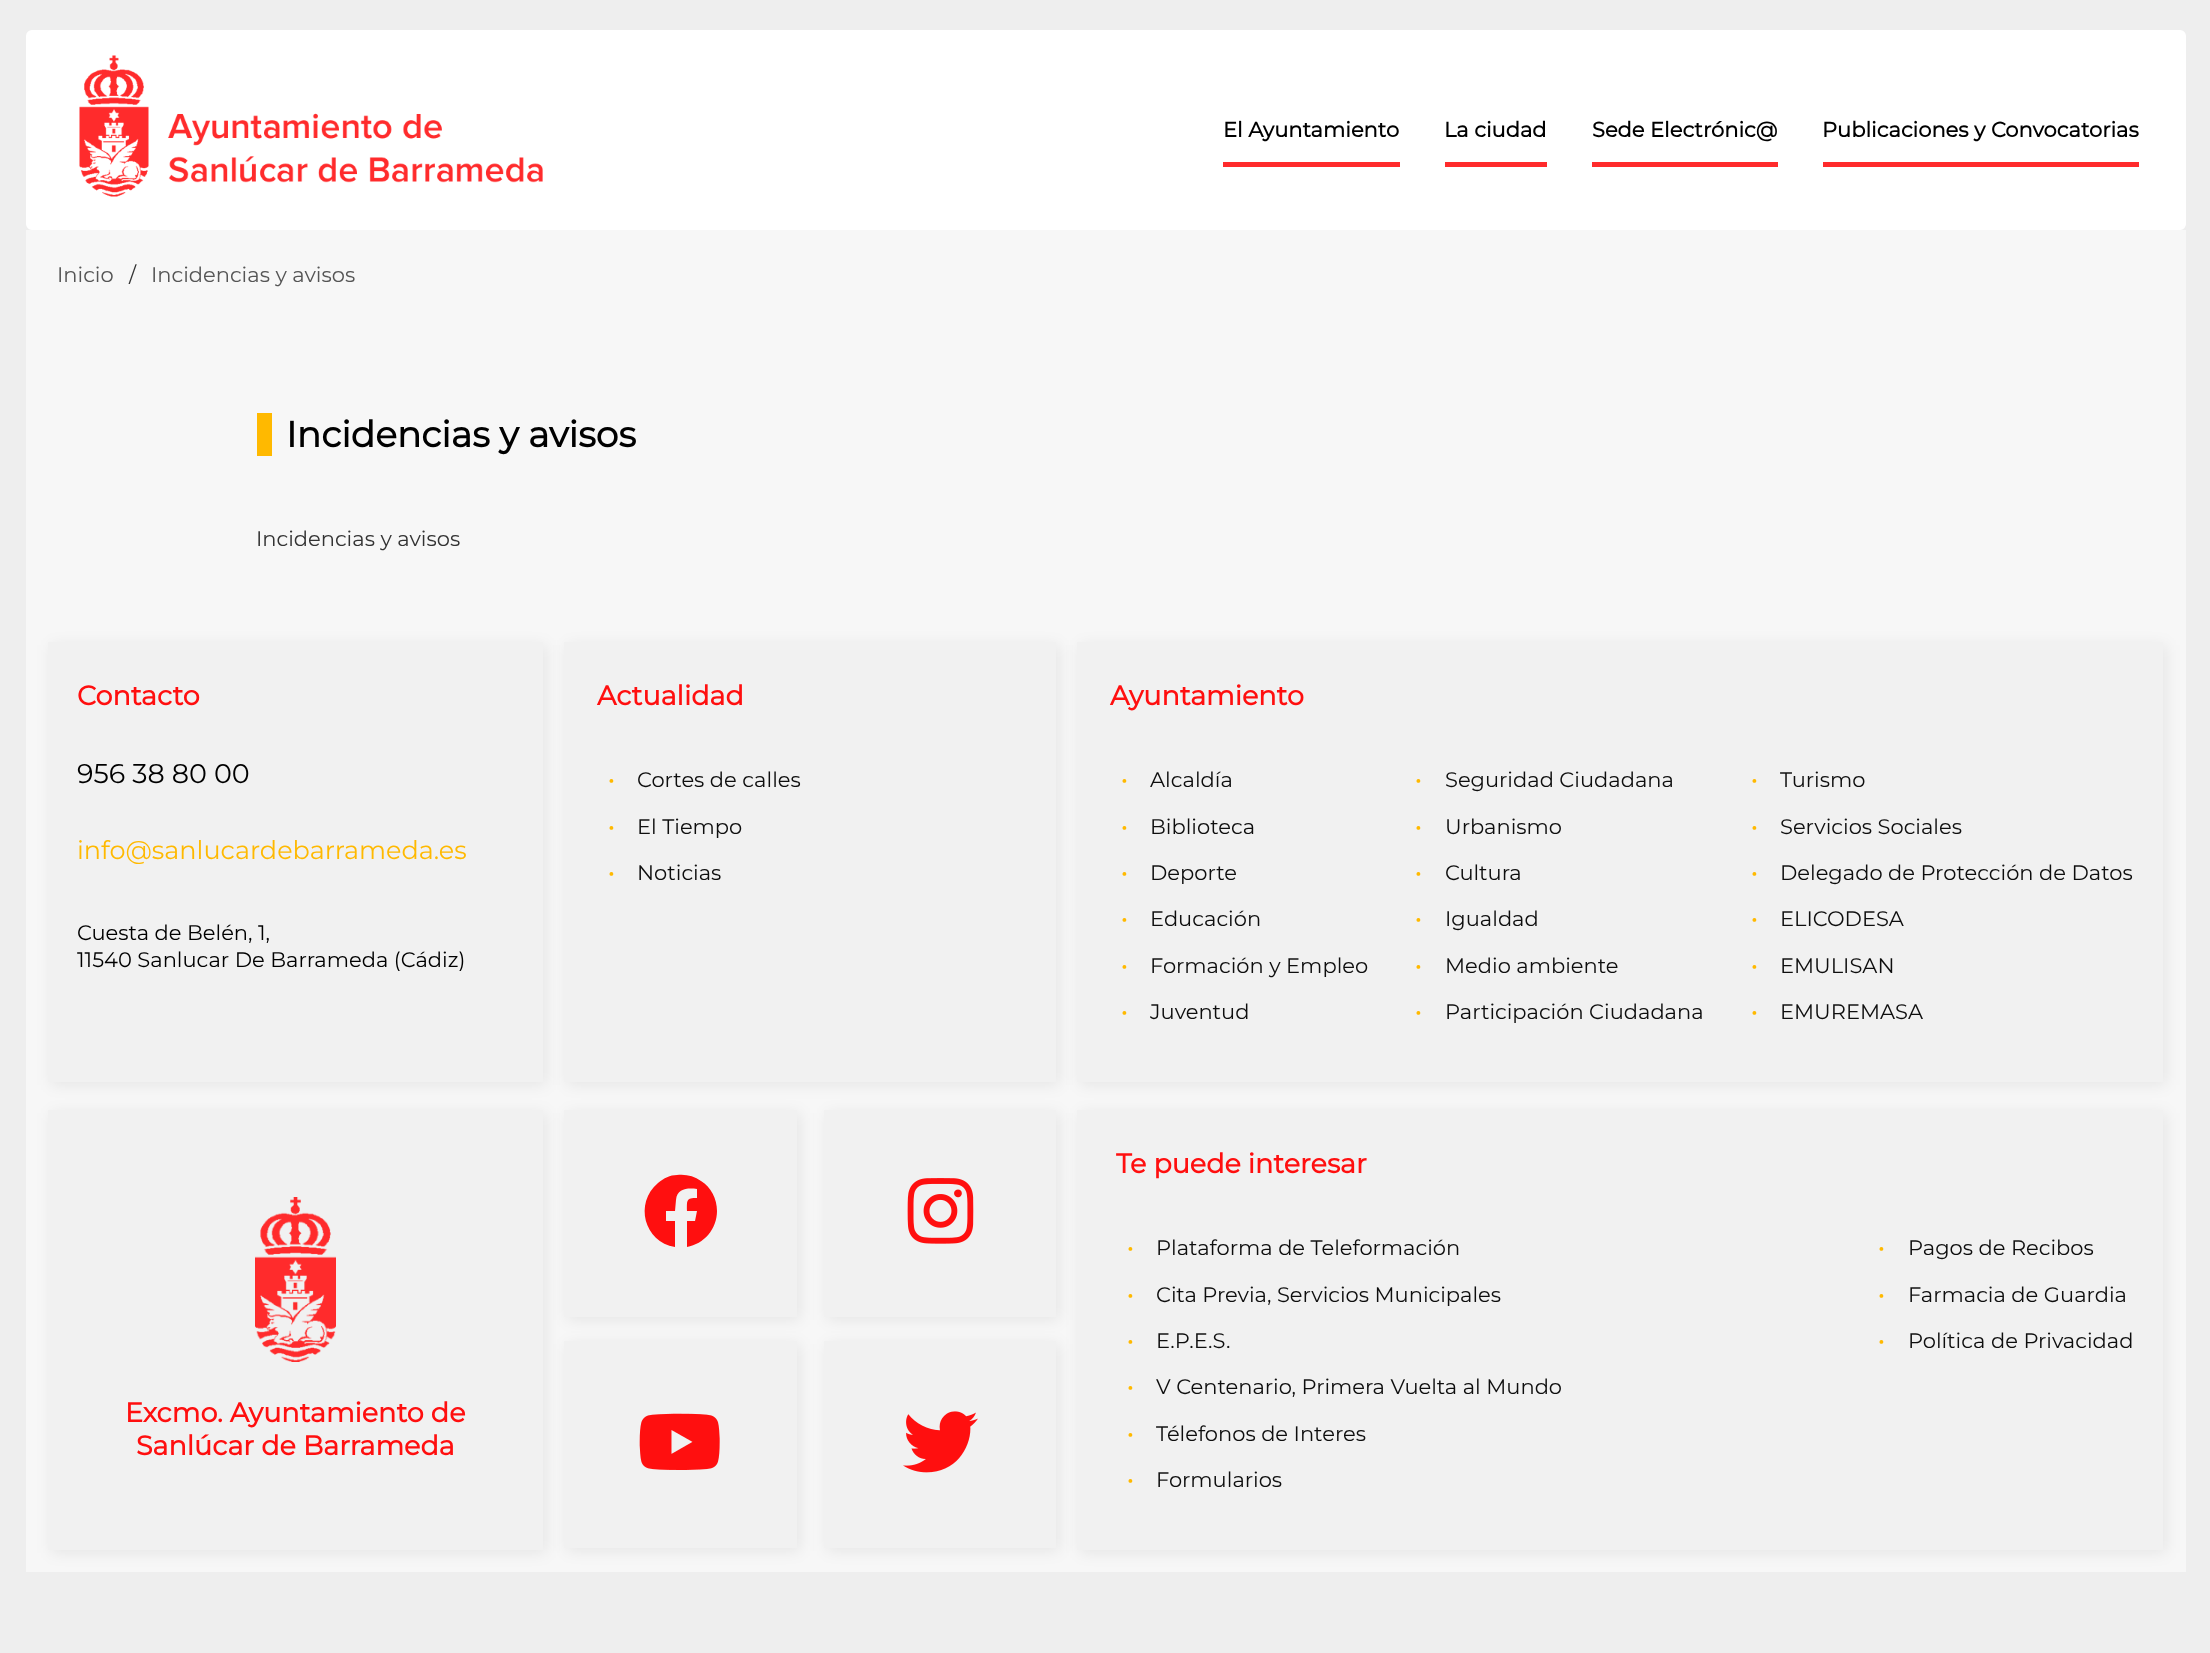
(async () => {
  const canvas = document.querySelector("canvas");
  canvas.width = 2210;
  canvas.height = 1653;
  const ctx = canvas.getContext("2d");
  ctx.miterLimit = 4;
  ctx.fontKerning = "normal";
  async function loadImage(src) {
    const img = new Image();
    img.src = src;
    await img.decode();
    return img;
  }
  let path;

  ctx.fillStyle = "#eeeeee";
  ctx.fillRect(0, 0, 2210, 1653);
  ctx.fillStyle = "#ffffff";
  ctx.beginPath();
  ctx.roundRect(27, 31, 2158, 198, 5);
  ctx.fill();
  ctx.strokeStyle = "#ffffff";
  ctx.lineWidth = 2;
  ctx.stroke();
  ctx.drawImage(await loadImage("img/1.png"), 79, 55, 464, 142);
  for (const [x, y, w, h, color] of [
    [1223, 162, 177, 5, "#ff2b2c"],
    [1445, 162, 102, 5, "#ff2b2c"],
    [1592, 162, 186, 5, "#ff2b2c"],
    [1823, 162, 316, 5, "#ff2b2c"],
    [26, 230, 2160, 1342, "#f7f7f7"],
    [257, 413, 15, 43, "#ffb900"],
  ]) {
    ctx.fillStyle = color;
    ctx.fillRect(x, y, w, h);
  }
  ctx.fillStyle = "rgba(0, 0, 0, 0.07)";
  ctx.filter = "blur(7.5px)";
  ctx.beginPath();
  ctx.rect(51, 645, 495, 440);
  ctx.fill();
  ctx.filter = "none";
  ctx.fillStyle = "#f1f1f1";
  ctx.fillRect(48, 642, 495, 440);
  ctx.fillStyle = "rgba(0, 0, 0, 0.07)";
  ctx.filter = "blur(7.5px)";
  ctx.beginPath();
  ctx.rect(567, 645, 492, 440);
  ctx.fill();
  ctx.filter = "none";
  ctx.fillStyle = "#f1f1f1";
  ctx.fillRect(564, 642, 492, 440);
  ctx.fillStyle = "rgba(0, 0, 0, 0.07)";
  ctx.filter = "blur(7.5px)";
  ctx.beginPath();
  ctx.rect(1080, 645, 1086, 440);
  ctx.fill();
  ctx.filter = "none";
  ctx.fillStyle = "#f1f1f1";
  ctx.fillRect(1077, 642, 1086, 440);
  ctx.fillStyle = "rgba(0, 0, 0, 0.07)";
  ctx.filter = "blur(7.5px)";
  ctx.beginPath();
  ctx.rect(51, 1113, 495, 440);
  ctx.fill();
  ctx.filter = "none";
  ctx.fillStyle = "#f1f1f1";
  ctx.fillRect(48, 1110, 495, 440);
  ctx.drawImage(await loadImage("img/2.png"), 255, 1197, 81, 165);
  ctx.fillStyle = "rgba(0, 0, 0, 0.07)";
  ctx.filter = "blur(7.5px)";
  ctx.beginPath();
  ctx.rect(567, 1113, 233, 207);
  ctx.fill();
  ctx.filter = "none";
  ctx.fillStyle = "#f1f1f1";
  ctx.fillRect(564, 1110, 233, 207);
  ctx.fillStyle = "#ff0f0f";
  path = new Path2D("M717 1211C717 1229 704 1244 687 1247V1221H695L697 1211H687C687 1200 686 1198 697 1198V1189C688 1188 677 1188 676 1200L675 1211H666V1221H675V1247C644 1242 634 1203 658 1183C664 1178 670 1175 677 1175C686 1174 694 1176 701 1181C711 1187 717 1199 717 1211Z");
  ctx.fill(path);
  ctx.fillStyle = "rgba(0, 0, 0, 0.07)";
  ctx.filter = "blur(7.5px)";
  ctx.beginPath();
  ctx.rect(827, 1113, 232, 207);
  ctx.fill();
  ctx.filter = "none";
  ctx.fillStyle = "#f1f1f1";
  ctx.fillRect(824, 1110, 232, 207);
  ctx.drawImage(await loadImage("img/3.png"), 907, 1178, 67, 66);
  ctx.fillStyle = "rgba(0, 0, 0, 0.07)";
  ctx.filter = "blur(7.5px)";
  ctx.beginPath();
  ctx.rect(567, 1344, 233, 207);
  ctx.fill();
  ctx.filter = "none";
  ctx.fillStyle = "#f1f1f1";
  ctx.fillRect(564, 1341, 233, 207);
  ctx.drawImage(await loadImage("img/4.png"), 639, 1413, 81, 57);
  ctx.fillStyle = "rgba(0, 0, 0, 0.07)";
  ctx.filter = "blur(7.5px)";
  ctx.beginPath();
  ctx.rect(827, 1344, 232, 207);
  ctx.fill();
  ctx.filter = "none";
  ctx.fillStyle = "#f1f1f1";
  ctx.fillRect(824, 1341, 232, 207);
  ctx.drawImage(await loadImage("img/5.png"), 903, 1411, 75, 62);
  ctx.fillStyle = "rgba(0, 0, 0, 0.07)";
  ctx.filter = "blur(7.5px)";
  ctx.beginPath();
  ctx.rect(1080, 1113, 1086, 440);
  ctx.fill();
  ctx.filter = "none";
  ctx.fillStyle = "#f1f1f1";
  ctx.fillRect(1077, 1110, 1086, 440);
  ctx.font = "bold 21px Montserrat";
  ctx.fillStyle = "#000000";
  for (const [text, x, y] of [
    ["El Ayuntamiento", 1223, 137],
    ["La ciudad", 1444, 137],
    ["Sede Electrónic@", 1592, 137],
    ["Publicaciones y Convocatorias", 1822, 137],
  ]) {
    ctx.fillText(text, x, y);
  }
  ctx.font = "100 21px Montserrat";
  ctx.fillStyle = "#555555";
  ctx.fillText("Inicio", 57, 282);
  ctx.fillStyle = "#333333";
  ctx.fillText("/", 129, 282);
  ctx.fillStyle = "#555555";
  ctx.fillText("Incidencias y avisos", 151, 282);
  ctx.font = "bold 36px Montserrat";
  ctx.fillStyle = "#000000";
  ctx.fillText("Incidencias y avisos", 286, 447);
  ctx.font = "100 21px Montserrat";
  ctx.fillStyle = "#333333";
  ctx.fillText("Incidencias y avisos", 256, 546);
  ctx.font = "bold 27px Montserrat";
  ctx.fillStyle = "#ff0f0f";
  ctx.fillText("Contacto", 77, 705);
  ctx.font = "100 27px Montserrat";
  ctx.fillStyle = "#000000";
  ctx.fillText("956 38 80 00", 77, 783);
  ctx.font = "100 25.5px Montserrat";
  ctx.fillStyle = "#ffb900";
  ctx.fillText("info@sanlucardebarrameda.es", 77, 859);
  ctx.font = "100 21px Montserrat";
  ctx.fillStyle = "#000000";
  ctx.fillText("Cuesta de Belén, 1,", 77, 940);
  ctx.fillText("11540 Sanlucar De Barrameda (Cádiz)", 77, 967);
  ctx.font = "bold 27px Montserrat";
  ctx.fillStyle = "#ff0f0f";
  ctx.fillText("Actualidad", 597, 705);
  ctx.font = "bold 21px Montserrat";
  ctx.fillStyle = "#ffb900";
  ctx.fillText("•", 608, 787);
  ctx.font = "100 21px Montserrat";
  ctx.fillStyle = "#0e0e0e";
  ctx.fillText("Cortes de calles", 637, 787);
  ctx.font = "bold 21px Montserrat";
  ctx.fillStyle = "#ffb900";
  ctx.fillText("•", 608, 834);
  ctx.font = "100 21px Montserrat";
  ctx.fillStyle = "#0e0e0e";
  ctx.fillText("El Tiempo", 637, 834);
  ctx.font = "bold 21px Montserrat";
  ctx.fillStyle = "#ffb900";
  ctx.fillText("•", 608, 880);
  ctx.font = "100 21px Montserrat";
  ctx.fillStyle = "#0e0e0e";
  ctx.fillText("Noticias", 637, 880);
  ctx.font = "bold 27px Montserrat";
  ctx.fillStyle = "#ff0f0f";
  ctx.fillText("Ayuntamiento", 1110, 705);
  ctx.font = "bold 21px Montserrat";
  ctx.fillStyle = "#ffb900";
  ctx.fillText("•", 1121, 787);
  ctx.font = "100 21px Montserrat";
  ctx.fillStyle = "#0e0e0e";
  ctx.fillText("Alcaldía", 1150, 787);
  ctx.font = "bold 21px Montserrat";
  ctx.fillStyle = "#ffb900";
  ctx.fillText("•", 1121, 834);
  ctx.font = "100 21px Montserrat";
  ctx.fillStyle = "#0e0e0e";
  ctx.fillText("Biblioteca", 1150, 834);
  ctx.font = "bold 21px Montserrat";
  ctx.fillStyle = "#ffb900";
  ctx.fillText("•", 1121, 880);
  ctx.font = "100 21px Montserrat";
  ctx.fillStyle = "#0e0e0e";
  ctx.fillText("Deporte", 1150, 880);
  ctx.font = "bold 21px Montserrat";
  ctx.fillStyle = "#ffb900";
  ctx.fillText("•", 1121, 926);
  ctx.font = "100 21px Montserrat";
  ctx.fillStyle = "#0e0e0e";
  ctx.fillText("Educación", 1150, 926);
  ctx.font = "bold 21px Montserrat";
  ctx.fillStyle = "#ffb900";
  ctx.fillText("•", 1121, 973);
  ctx.font = "100 21px Montserrat";
  ctx.fillStyle = "#0e0e0e";
  ctx.fillText("Formación y Empleo", 1150, 973);
  ctx.font = "bold 21px Montserrat";
  ctx.fillStyle = "#ffb900";
  ctx.fillText("•", 1121, 1019);
  ctx.font = "100 21px Montserrat";
  ctx.fillStyle = "#0e0e0e";
  ctx.fillText("Juventud", 1150, 1019);
  ctx.font = "bold 21px Montserrat";
  ctx.fillStyle = "#ffb900";
  ctx.fillText("•", 1415, 787);
  ctx.font = "100 21px Montserrat";
  ctx.fillStyle = "#0e0e0e";
  ctx.fillText("Seguridad Ciudadana", 1445, 787);
  ctx.font = "bold 21px Montserrat";
  ctx.fillStyle = "#ffb900";
  ctx.fillText("•", 1415, 834);
  ctx.font = "100 21px Montserrat";
  ctx.fillStyle = "#0e0e0e";
  ctx.fillText("Urbanismo", 1445, 834);
  ctx.font = "bold 21px Montserrat";
  ctx.fillStyle = "#ffb900";
  ctx.fillText("•", 1415, 880);
  ctx.font = "100 21px Montserrat";
  ctx.fillStyle = "#0e0e0e";
  ctx.fillText("Cultura", 1445, 880);
  ctx.font = "bold 21px Montserrat";
  ctx.fillStyle = "#ffb900";
  ctx.fillText("•", 1415, 926);
  ctx.font = "100 21px Montserrat";
  ctx.fillStyle = "#0e0e0e";
  ctx.fillText("Igualdad", 1445, 926);
  ctx.font = "bold 21px Montserrat";
  ctx.fillStyle = "#ffb900";
  ctx.fillText("•", 1415, 973);
  ctx.font = "100 21px Montserrat";
  ctx.fillStyle = "#0e0e0e";
  ctx.fillText("Medio ambiente", 1445, 973);
  ctx.font = "bold 21px Montserrat";
  ctx.fillStyle = "#ffb900";
  ctx.fillText("•", 1415, 1019);
  ctx.font = "100 21px Montserrat";
  ctx.fillStyle = "#0e0e0e";
  ctx.fillText("Participación Ciudadana", 1445, 1019);
  ctx.font = "bold 21px Montserrat";
  ctx.fillStyle = "#ffb900";
  ctx.fillText("•", 1751, 787);
  ctx.font = "100 21px Montserrat";
  ctx.fillStyle = "#0e0e0e";
  ctx.fillText("Turismo", 1780, 787);
  ctx.font = "bold 21px Montserrat";
  ctx.fillStyle = "#ffb900";
  ctx.fillText("•", 1751, 834);
  ctx.font = "100 21px Montserrat";
  ctx.fillStyle = "#0e0e0e";
  ctx.fillText("Servicios Sociales", 1780, 834);
  ctx.font = "bold 21px Montserrat";
  ctx.fillStyle = "#ffb900";
  ctx.fillText("•", 1751, 880);
  ctx.font = "100 21px Montserrat";
  ctx.fillStyle = "#0e0e0e";
  ctx.fillText("Delegado de Protección de Datos", 1780, 880);
  ctx.font = "bold 21px Montserrat";
  ctx.fillStyle = "#ffb900";
  ctx.fillText("•", 1751, 926);
  ctx.font = "100 21px Montserrat";
  ctx.fillStyle = "#0e0e0e";
  ctx.fillText("ELICODESA", 1780, 926);
  ctx.font = "bold 21px Montserrat";
  ctx.fillStyle = "#ffb900";
  ctx.fillText("•", 1751, 973);
  ctx.font = "100 21px Montserrat";
  ctx.fillStyle = "#0e0e0e";
  ctx.fillText("EMULISAN", 1780, 973);
  ctx.font = "bold 21px Montserrat";
  ctx.fillStyle = "#ffb900";
  ctx.fillText("•", 1751, 1019);
  ctx.font = "100 21px Montserrat";
  ctx.fillStyle = "#0e0e0e";
  ctx.fillText("EMUREMASA", 1780, 1019);
  ctx.font = "bold 27px Montserrat";
  ctx.fillStyle = "#ff0f0f";
  for (const [text, x, y] of [
    ["Excmo. Ayuntamiento de", 125, 1422],
    ["Sanlúcar de Barrameda", 136, 1455],
    ["Te puede interesar", 1116, 1173],
  ]) {
    ctx.fillText(text, x, y);
  }
  ctx.font = "bold 21px Montserrat";
  ctx.fillStyle = "#ffb900";
  ctx.fillText("•", 1127, 1255);
  ctx.font = "100 21px Montserrat";
  ctx.fillStyle = "#0e0e0e";
  ctx.fillText("Plataforma de Teleformación", 1156, 1255);
  ctx.font = "bold 21px Montserrat";
  ctx.fillStyle = "#ffb900";
  ctx.fillText("•", 1127, 1302);
  ctx.font = "100 21px Montserrat";
  ctx.fillStyle = "#0e0e0e";
  ctx.fillText("Cita Previa, Servicios Municipales", 1156, 1302);
  ctx.font = "bold 21px Montserrat";
  ctx.fillStyle = "#ffb900";
  ctx.fillText("•", 1127, 1348);
  ctx.font = "100 21px Montserrat";
  ctx.fillStyle = "#0e0e0e";
  ctx.fillText("E.P.E.S.", 1156, 1348);
  ctx.font = "bold 21px Montserrat";
  ctx.fillStyle = "#ffb900";
  ctx.fillText("•", 1127, 1394);
  ctx.font = "100 21px Montserrat";
  ctx.fillStyle = "#0e0e0e";
  ctx.fillText("V Centenario, Primera Vuelta al Mundo", 1156, 1394);
  ctx.font = "bold 21px Montserrat";
  ctx.fillStyle = "#ffb900";
  ctx.fillText("•", 1127, 1441);
  ctx.font = "100 21px Montserrat";
  ctx.fillStyle = "#0e0e0e";
  ctx.fillText("Télefonos de Interes", 1156, 1441);
  ctx.font = "bold 21px Montserrat";
  ctx.fillStyle = "#ffb900";
  ctx.fillText("•", 1127, 1487);
  ctx.font = "100 21px Montserrat";
  ctx.fillStyle = "#0e0e0e";
  ctx.fillText("Formularios", 1156, 1487);
  ctx.font = "bold 21px Montserrat";
  ctx.fillStyle = "#ffb900";
  ctx.fillText("•", 1878, 1255);
  ctx.font = "100 21px Montserrat";
  ctx.fillStyle = "#0e0e0e";
  ctx.fillText("Pagos de Recibos", 1908, 1255);
  ctx.font = "bold 21px Montserrat";
  ctx.fillStyle = "#ffb900";
  ctx.fillText("•", 1878, 1302);
  ctx.font = "100 21px Montserrat";
  ctx.fillStyle = "#0e0e0e";
  ctx.fillText("Farmacia de Guardia", 1908, 1302);
  ctx.font = "bold 21px Montserrat";
  ctx.fillStyle = "#ffb900";
  ctx.fillText("•", 1878, 1348);
  ctx.font = "100 21px Montserrat";
  ctx.fillStyle = "#0e0e0e";
  ctx.fillText("Política de Privacidad", 1908, 1348);
})();
